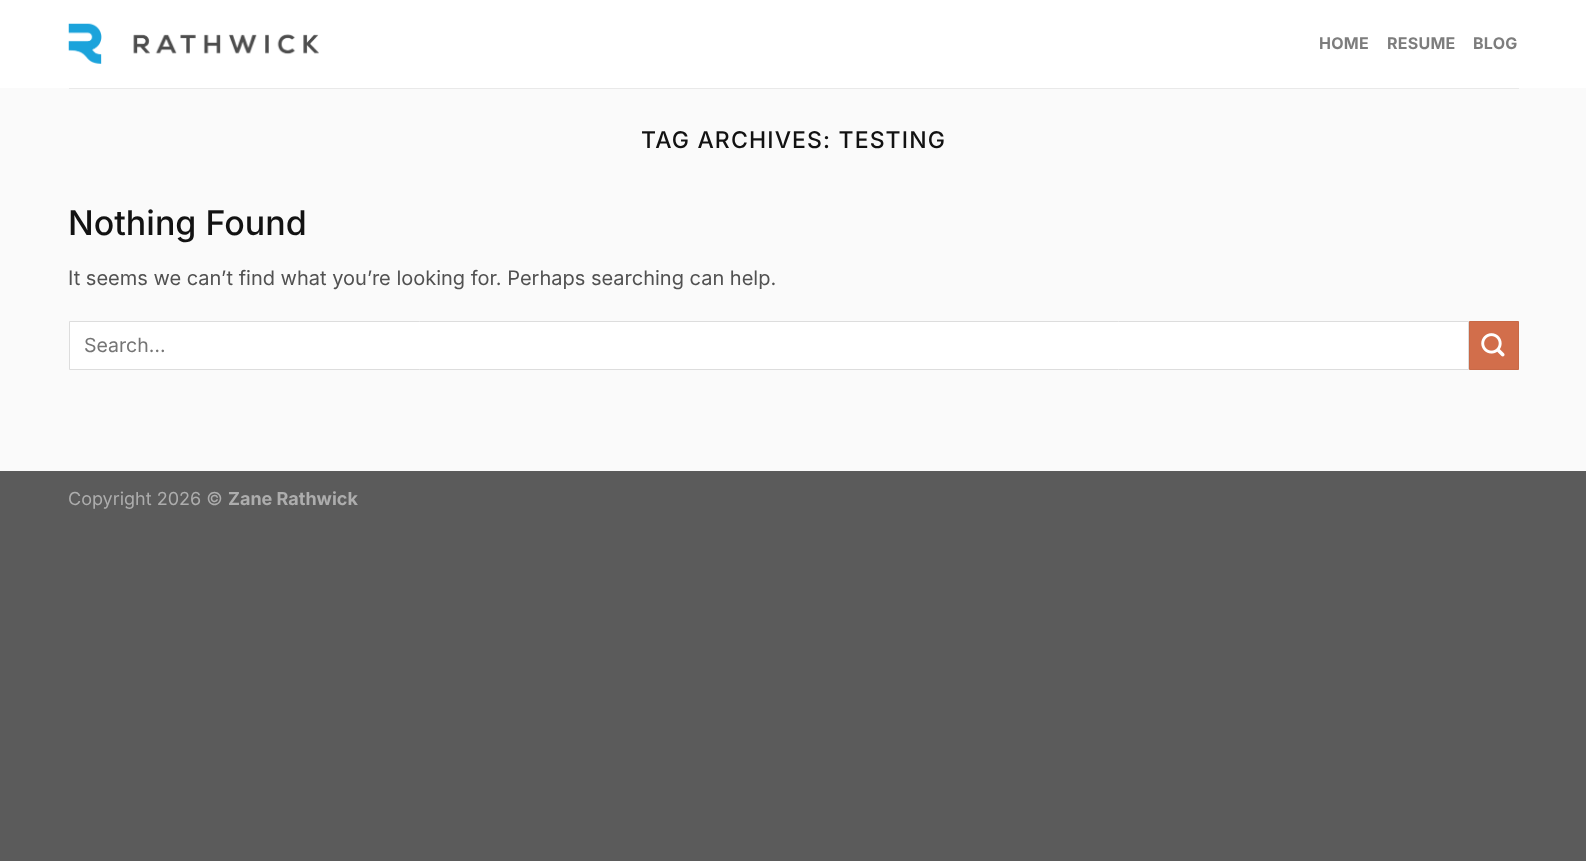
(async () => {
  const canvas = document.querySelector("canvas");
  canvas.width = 1586;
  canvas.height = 861;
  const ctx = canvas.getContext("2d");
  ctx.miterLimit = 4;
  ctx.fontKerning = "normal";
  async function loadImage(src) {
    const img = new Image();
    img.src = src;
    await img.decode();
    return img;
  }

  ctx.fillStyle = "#5b5b5b";
  ctx.fillRect(0, 0, 1586, 861);
  ctx.fillStyle = "#ffffff";
  ctx.fillRect(0, 0, 1586, 88);
  ctx.drawImage(await loadImage("img/1.png"), 68, 23, 251, 41);
  ctx.fillStyle = "#fafafa";
  ctx.fillRect(0, 88, 1586, 383);
  ctx.fillStyle = "#e9e9e9";
  ctx.fillRect(69, 88, 1450, 1);
  ctx.fillStyle = "#ffffff";
  ctx.beginPath();
  ctx.rect(69.5, 321.5, 1399, 48);
  ctx.fill();
  ctx.strokeStyle = "#dddddd";
  ctx.stroke();
  ctx.fillStyle = "#d26e4b";
  ctx.beginPath();
  ctx.rect(1469.5, 321.5, 49, 48);
  ctx.fill();
  ctx.strokeStyle = "#c86947";
  ctx.stroke();
  ctx.drawImage(await loadImage("img/2.png"), 1481, 333, 24, 24);
  ctx.letterSpacing = "0.25px";
  ctx.font = "bold 16px Inter";
  ctx.fillStyle = "#7d7d7d";
  for (const [text, x, y] of [
    ["HOME", 1319, 49],
    ["RESUME", 1387, 49],
    ["BLOG", 1473, 49],
  ]) {
    ctx.fillText(text, x, y);
  }
  ctx.letterSpacing = "1.15px";
  ctx.font = "500 23px Inter";
  ctx.fillStyle = "#121212";
  ctx.fillText("TAG ARCHIVES: TESTING", 641, 148);
  ctx.letterSpacing = "0px";
  ctx.font = "500 34px Inter";
  ctx.fillText("Nothing Found", 68, 235);
  ctx.font = "20px Inter";
  ctx.fillStyle = "#515151";
  ctx.fillText("It seems we can’t find what you’re looking for. Perhaps searching can help.", 68, 285);
  ctx.font = "19.5px Inter";
  ctx.fillStyle = "#757575";
  ctx.fillText("Search…", 84, 352);
  ctx.font = "18px Inter";
  ctx.fillStyle = "#adadad";
  ctx.fillText("Copyright 2026 ©", 68, 505);
  ctx.font = "bold 18px Inter";
  ctx.fillText("Zane Rathwick", 228, 505);
})();
